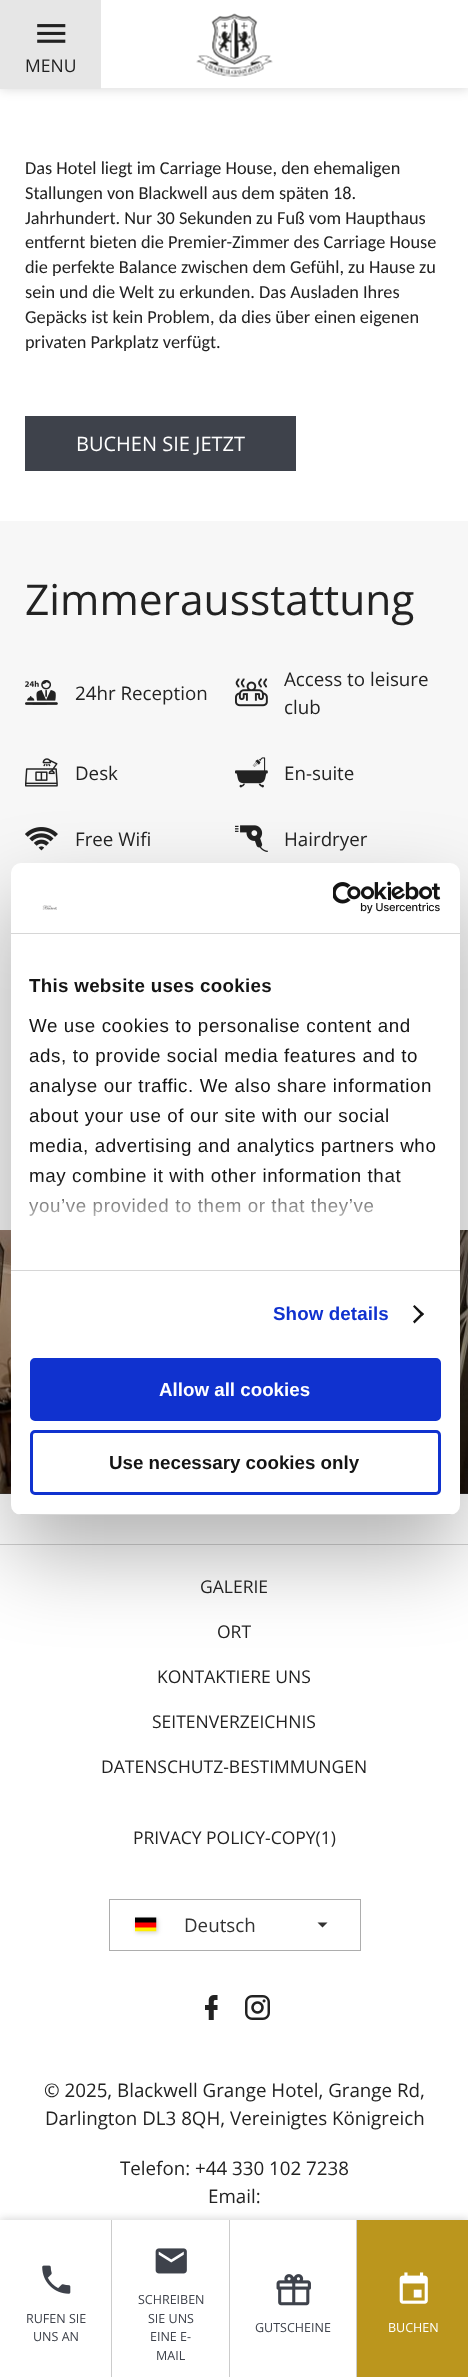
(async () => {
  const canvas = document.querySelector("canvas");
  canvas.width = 468;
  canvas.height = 2377;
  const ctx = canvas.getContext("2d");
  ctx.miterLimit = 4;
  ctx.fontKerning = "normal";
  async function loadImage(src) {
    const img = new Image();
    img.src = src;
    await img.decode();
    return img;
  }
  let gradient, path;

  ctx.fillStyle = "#ffffff";
  ctx.fillRect(0, 0, 468, 2377);
  ctx.fillStyle = "rgba(0, 0, 0, 0.15)";
  ctx.filter = "blur(6px)";
  ctx.beginPath();
  ctx.rect(0, 1, 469, 88);
  ctx.fill();
  ctx.filter = "none";
  ctx.fillStyle = "#ffffff";
  ctx.fillRect(101, 0, 367, 88);
  ctx.fillStyle = "#e6e6e6";
  ctx.fillRect(0, 0, 101, 89);
  ctx.drawImage(await loadImage("img/1.png"), 37, 24, 29, 19);
  ctx.drawImage(await loadImage("img/2.png"), 196, 13, 77, 64);
  ctx.fillStyle = "#3e424b";
  ctx.fillRect(25, 416, 271, 55);
  ctx.fillStyle = "#f7f7f7";
  ctx.fillRect(0, 521, 468, 709);
  ctx.drawImage(await loadImage("img/3.png"), 25, 680, 33, 25);
  ctx.drawImage(await loadImage("img/4.png"), 235, 678, 33, 29);
  ctx.drawImage(await loadImage("img/5.png"), 25, 758, 33, 29);
  ctx.drawImage(await loadImage("img/6.png"), 235, 757, 33, 31);
  ctx.drawImage(await loadImage("img/7.png"), 25, 827, 33, 24);
  ctx.drawImage(await loadImage("img/8.png"), 235, 825, 33, 27);
  ctx.fillStyle = "#3e424b";
  ctx.fillRect(0, 1493, 468, 1);
  ctx.drawImage(await loadImage("img/9.png"), 0, 1230, 468, 264);
  ctx.fillStyle = "#d3d3d3";
  ctx.fillRect(0, 1544, 468, 1);
  ctx.strokeStyle = "#adadad";
  ctx.strokeRect(109.5, 1899.5, 251, 51);
  ctx.fillStyle = "rgba(0, 0, 0, 0.16)";
  ctx.filter = "blur(2px)";
  ctx.beginPath();
  ctx.rect(136, 1919, 22, 14);
  ctx.fill();
  ctx.filter = "none";
  ctx.drawImage(await loadImage("img/10.png"), 135, 1917, 22, 15);
  ctx.fillStyle = "#333333";
  path = new Path2D("M317.5 1922.5L322.5 1927.5L327.5 1922.5Z");
  ctx.fill(path);
  ctx.drawImage(await loadImage("img/11.png"), 205, 1995, 13, 25);
  ctx.drawImage(await loadImage("img/12.png"), 245, 1995, 25, 25);
  ctx.fillStyle = "rgba(0, 0, 0, 0.3)";
  ctx.filter = "blur(42.5px)";
  ctx.beginPath();
  ctx.roundRect(11, 903, 449, 652, 10);
  ctx.fill();
  ctx.filter = "none";
  ctx.fillStyle = "#ffffff";
  ctx.beginPath();
  ctx.roundRect(11, 863, 449, 652, 10);
  ctx.fill();
  ctx.fillStyle = "#d6d6d6";
  ctx.fillRect(11, 933, 449, 1);
  ctx.drawImage(await loadImage("img/13.png"), 42, 905, 15, 5);
  ctx.drawImage(await loadImage("img/14.png"), 333, 881, 108, 33);
  ctx.fillRect(11, 1270, 449, 1);
  ctx.fillStyle = "#141414";
  path = new Path2D("M414.5 1305L424 1314L422 1316L413 1306.5Z");
  ctx.fill(path);
  path = new Path2D("M422 1312.5L424 1314L414.5 1323.5L413 1321.5Z");
  ctx.fill(path);
  ctx.save();
  ctx.beginPath();
  ctx.roundRect(11, 863, 449, 652, 10);
  ctx.clip();
  ctx.fillStyle = "#d6d6d6";
  ctx.fillRect(11, 1514, 449, 1);
  ctx.restore();
  ctx.fillStyle = "#1032cf";
  ctx.beginPath();
  ctx.roundRect(31.5, 1359.5, 408, 60, 3.5);
  ctx.fill();
  ctx.strokeStyle = "#1032cf";
  ctx.lineWidth = 3;
  ctx.stroke();
  ctx.beginPath();
  ctx.roundRect(31.5, 1431.5, 408, 62, 3.5);
  ctx.stroke();
  ctx.fillStyle = "rgba(0, 0, 0, 0.16)";
  ctx.filter = "blur(4px)";
  ctx.beginPath();
  ctx.rect(0, 2219, 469, 157);
  ctx.fill();
  ctx.filter = "none";
  ctx.fillStyle = "#ffffff";
  ctx.fillRect(0, 2220, 356, 157);
  ctx.drawImage(await loadImage("img/15.png"), 42, 2265, 29, 29);
  ctx.fillStyle = "#cccccc";
  ctx.fillRect(111, 2220, 1, 157);
  ctx.drawImage(await loadImage("img/16.png"), 155, 2248, 32, 26);
  ctx.fillRect(229, 2220, 1, 157);
  ctx.drawImage(await loadImage("img/17.png"), 276, 2274, 35, 32);
  ctx.fillStyle = "#bb961d";
  ctx.fillRect(357, 2220, 111, 157);
  ctx.fillStyle = "#cccccc";
  ctx.fillRect(356, 2220, 1, 157);
  ctx.drawImage(await loadImage("img/18.png"), 399, 2272, 29, 32);
  ctx.font = "17.5px Open Sans";
  ctx.fillStyle = "#222222";
  ctx.fillText("MENU", 25, 72);
  ctx.font = "18.3px Carlito";
  for (const [text, x, y] of [
    ["Das Hotel liegt im Carriage House, den ehemaligen", 25, 174],
    ["Stallungen von Blackwell aus dem späten 18.", 25, 199],
    ["Jahrhundert. Nur 30 Sekunden zu Fuß vom Haupthaus", 25, 224],
    ["entfernt bieten die Premier-Zimmer des Carriage House", 25, 248],
    ["die perfekte Balance zwischen dem Gefühl, zu Hause zu", 25, 273],
    ["sein und die Welt zu erkunden. Das Ausladen Ihres", 25, 298],
    ["Gepäcks ist kein Problem, da dies über einen eigenen", 25, 323],
    ["privaten Parkplatz verfügt.", 25, 348],
  ]) {
    ctx.fillText(text, x, y);
  }
  ctx.font = "20px Open Sans";
  ctx.fillStyle = "#ffffff";
  ctx.fillText("BUCHEN SIE JETZT", 76, 451);
  ctx.font = "42.5px Open Sans";
  ctx.fillStyle = "#222222";
  ctx.fillText("Zimmerausstattung", 25, 615);
  ctx.font = "18.75px Open Sans";
  for (const [text, x, y] of [
    ["24hr Reception", 75, 700],
    ["Access to leisure", 284, 686],
    ["club", 284, 714],
    ["Desk", 75, 780],
    ["En-suite", 284, 780],
    ["Free Wifi", 75, 846],
    ["Hairdryer", 284, 846],
  ]) {
    ctx.fillText(text, x, y);
  }
  ctx.font = "17.5px Open Sans";
  for (const [text, x, y] of [
    ["GALERIE", 200, 1593],
    ["ORT", 217, 1638],
    ["KONTAKTIERE UNS", 157, 1683],
    ["SEITENVERZEICHNIS", 152, 1728],
    ["DATENSCHUTZ-BESTIMMUNGEN", 101, 1773],
    ["PRIVACY POLICY-COPY(1)", 133, 1844],
  ]) {
    ctx.fillText(text, x, y);
  }
  ctx.font = "18.75px Open Sans";
  ctx.fillStyle = "#333333";
  ctx.fillText("Deutsch", 184, 1932);
  ctx.fillStyle = "#222222";
  for (const [text, x, y] of [
    ["© 2025, Blackwell Grange Hotel, Grange Rd,", 44, 2097],
    ["Darlington DL3 8QH, Vereinigtes Königreich", 45, 2125],
    ["Telefon: +44 330 102 7238", 120, 2175],
    ["Email:", 208, 2203],
  ]) {
    ctx.fillText(text, x, y);
  }
  ctx.letterSpacing = "0.3px";
  ctx.font = "bold 18.75px Liberation Sans";
  ctx.fillStyle = "#141414";
  ctx.fillText("This website uses cookies", 29, 992);
  ctx.letterSpacing = "0.6px";
  ctx.font = "18.75px Liberation Sans";
  for (const [text, x, y] of [
    ["We use cookies to personalise content and", 29, 1032],
    ["ads, to provide social media features and to", 29, 1062],
    ["analyse our traffic. We also share information", 29, 1092],
    ["about your use of our site with our social", 29, 1122],
    ["media, advertising and analytics partners who", 29, 1152],
    ["may combine it with other information that", 29, 1182],
    ["you’ve provided to them or that they’ve", 29, 1212],
  ]) {
    ctx.fillText(text, x, y);
  }
  gradient = ctx.createLinearGradient(227, 1270, 227, 1177);
  gradient.addColorStop(0, "#ffffff");
  gradient.addColorStop(0.5, "rgba(255, 255, 255, 0.8)");
  gradient.addColorStop(1, "rgba(255, 255, 255, 0)");
  ctx.fillStyle = gradient;
  ctx.fillRect(28, 1178, 374, 38);
  ctx.letterSpacing = "0.1px";
  ctx.font = "bold 18.75px Liberation Sans";
  ctx.fillStyle = "#1032cf";
  ctx.fillText("Show details", 273, 1320);
  ctx.letterSpacing = "0px";
  ctx.fillStyle = "#ffffff";
  ctx.fillText("Allow all cookies", 159, 1396);
  ctx.fillStyle = "#141414";
  ctx.fillText("Use necessary cookies only", 109, 1469);
  ctx.font = "12.5px Open Sans";
  ctx.fillStyle = "#3e424b";
  for (const [text, x, y] of [
    ["RUFEN SIE", 26, 2323],
    ["UNS AN", 33, 2341],
    ["SCHREIBEN", 138, 2304],
    ["SIE UNS", 148, 2323],
    ["EINE E-", 150, 2341],
    ["MAIL", 156, 2360],
    ["GUTSCHEINE", 255, 2332],
  ]) {
    ctx.fillText(text, x, y);
  }
  ctx.fillStyle = "#ffffff";
  ctx.fillText("BUCHEN", 388, 2332);
})();
